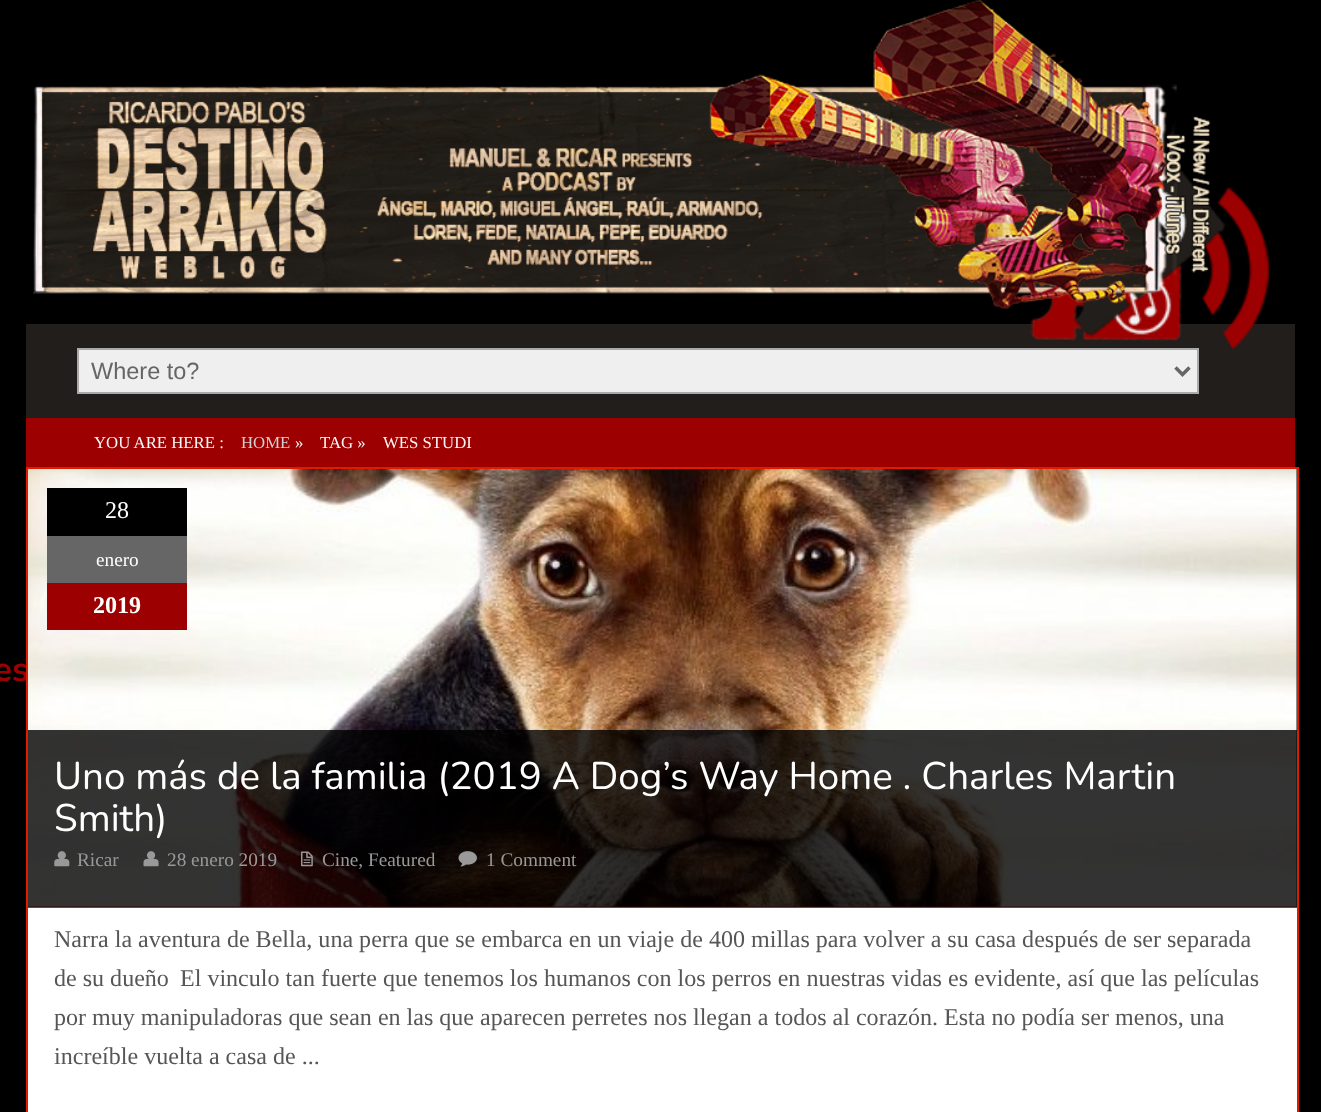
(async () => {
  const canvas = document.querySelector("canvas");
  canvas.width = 1321;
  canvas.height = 1112;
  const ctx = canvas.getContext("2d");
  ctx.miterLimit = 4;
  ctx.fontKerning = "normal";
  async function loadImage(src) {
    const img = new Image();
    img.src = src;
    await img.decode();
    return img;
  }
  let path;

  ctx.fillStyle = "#000000";
  ctx.fillRect(0, 0, 1321, 1112);
  ctx.fillStyle = "#221e1b";
  ctx.fillRect(26, 324, 1269, 94);
  ctx.fillStyle = "#efefef";
  ctx.beginPath();
  ctx.rect(78, 349, 1120, 44);
  ctx.fill();
  ctx.strokeStyle = "#aaaaaa";
  ctx.lineWidth = 2;
  ctx.stroke();
  path = new Path2D("M1175.5 367.5L1182.5 374.5L1189.5 367.5");
  ctx.strokeStyle = "#666666";
  ctx.lineWidth = 3.5;
  ctx.stroke(path);
  ctx.fillStyle = "#9d0000";
  ctx.fillRect(26, 418, 1269, 49);
  ctx.drawImage(await loadImage("img/2.png"), 1030, 158, 239, 192);
  ctx.drawImage(await loadImage("img/1.png"), 33, 0, 1178, 309);
  for (const [x, y, w, h, color] of [
    [28, 908, 1269, 204, "#ffffff"],
    [1297, 908, 2, 204, "#dd1c00"],
    [26, 908, 2, 204, "#dd1c00"],
  ]) {
    ctx.fillStyle = color;
    ctx.fillRect(x, y, w, h);
  }
  ctx.font = "23.5px Liberation Sans";
  ctx.fillStyle = "#666666";
  ctx.fillText("Where to?", 91, 379);
  ctx.font = "16.75px Liberation Serif";
  ctx.fillStyle = "#f6f6f6";
  ctx.fillText("YOU ARE HERE :", 94, 448);
  ctx.fillStyle = "#d1d1d1";
  ctx.fillText("HOME", 241, 448);
  ctx.fillStyle = "#f6f6f6";
  for (const [text, x, y] of [
    ["»", 295, 448],
    ["TAG »", 320, 448],
    ["WES STUDI", 383, 448],
  ]) {
    ctx.fillText(text, x, y);
  }
  ctx.font = "bold 35px Nunito";
  ctx.fillStyle = "#9d0000";
  ctx.fillText("es", -7, 681);
  ctx.strokeStyle = "#dd1c00";
  ctx.lineWidth = 2;
  ctx.strokeRect(27, 468, 1271, 439);
  ctx.drawImage(await loadImage("img/3.png"), 28, 469, 1269, 438);
  ctx.fillStyle = "#000000";
  ctx.fillRect(47, 488, 140, 48);
  ctx.font = "24.05px Liberation Serif";
  ctx.fillStyle = "#ffffff";
  ctx.fillText("28", 105, 518);
  ctx.fillStyle = "#666666";
  ctx.fillRect(47, 536, 140, 47);
  ctx.font = "19.25px Liberation Serif";
  ctx.fillStyle = "#ffffff";
  ctx.fillText("enero", 96, 566);
  ctx.fillStyle = "#9d0000";
  ctx.fillRect(47, 583, 140, 47);
  ctx.font = "bold 24.05px Liberation Serif";
  ctx.fillStyle = "#ffffff";
  ctx.fillText("2019", 93, 613);
  ctx.fillStyle = "rgba(0, 0, 0, 0.8)";
  ctx.fillRect(28, 730, 1269, 177);
  ctx.font = "38.5px Nunito";
  ctx.fillStyle = "#ffffff";
  ctx.fillText("Uno más de la familia (2019 A Dog’s Way Home . Charles Martin", 54, 789);
  ctx.fillText("Smith)", 54, 831);
  ctx.drawImage(await loadImage("img/4.png"), 54, 851, 16, 16);
  ctx.font = "19.25px Liberation Serif";
  ctx.fillStyle = "#999999";
  ctx.fillText("Ricar", 77, 866);
  ctx.drawImage(await loadImage("img/5.png"), 143, 851, 16, 16);
  ctx.fillText("28 enero 2019", 167, 866);
  ctx.drawImage(await loadImage("img/6.png"), 301, 851, 12, 16);
  ctx.fillText("Cine, Featured", 322, 866);
  ctx.drawImage(await loadImage("img/7.png"), 458, 851, 19, 16);
  ctx.fillText("1 Comment", 486, 866);
  ctx.font = "24.05px Liberation Serif";
  ctx.fillStyle = "#565656";
  for (const [text, x, y] of [
    ["Narra la aventura de Bella, una perra que se embarca en un viaje de 400 millas para volver a su casa después de ser separada", 54, 947],
    ["de su dueño", 54, 986],
    ["El vinculo tan fuerte que tenemos los humanos con los perros en nuestras vidas es evidente, así que las películas", 180, 986],
    ["por muy manipuladoras que sean en las que aparecen perretes nos llegan a todos al corazón. Esta no podía ser menos, una", 54, 1025],
    ["increíble vuelta a casa de ...", 54, 1064],
  ]) {
    ctx.fillText(text, x, y);
  }
})();
